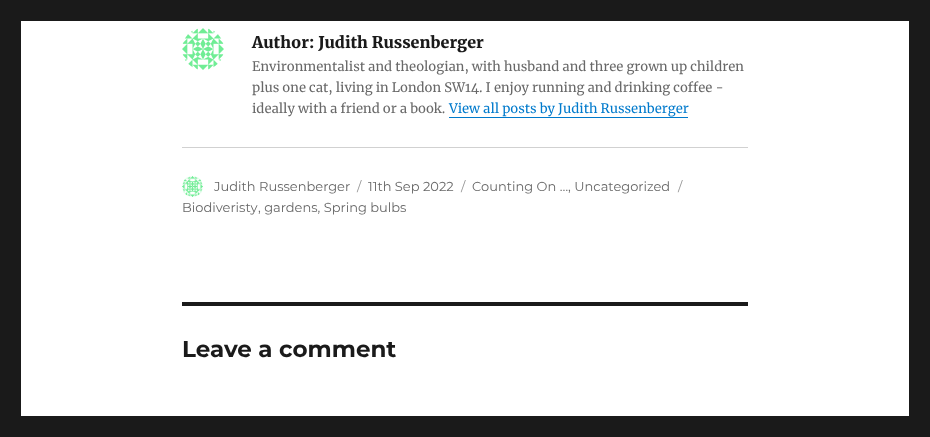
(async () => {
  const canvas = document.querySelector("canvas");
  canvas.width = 930;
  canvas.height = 437;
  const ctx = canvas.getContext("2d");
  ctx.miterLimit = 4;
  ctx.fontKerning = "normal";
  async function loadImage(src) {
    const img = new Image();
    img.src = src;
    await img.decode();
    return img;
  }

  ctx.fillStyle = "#1a1a1a";
  ctx.fillRect(0, 0, 930, 437);
  ctx.fillStyle = "#ffffff";
  ctx.fillRect(21, 21, 888, 395);
  ctx.fillStyle = "#d1d1d1";
  ctx.fillRect(182, 147, 566, 1);
  ctx.drawImage(await loadImage("img/1.png"), 182, 28, 42, 42);
  ctx.fillStyle = "#007acc";
  ctx.fillRect(449, 117, 239, 1);
  ctx.drawImage(await loadImage("img/2.png"), 182, 176, 21, 21);
  ctx.fillStyle = "#1a1a1a";
  ctx.fillRect(182, 302, 566, 4);
  ctx.font = "900 16px Merriweather";
  ctx.fillText("Author: Judith Russenberger", 252, 48);
  ctx.font = "13px Merriweather";
  ctx.fillStyle = "#686868";
  for (const [text, x, y] of [
    ["Environmentalist and theologian, with husband and three grown up children", 252, 71],
    ["plus one cat, living in London SW14. I enjoy running and drinking coffee -", 252, 92],
    ["ideally with a friend or a book.", 252, 113],
  ]) {
    ctx.fillText(text, x, y);
  }
  ctx.fillStyle = "#007acc";
  ctx.fillText("View all posts by Judith Russenberger", 449, 113);
  ctx.font = "100 13px 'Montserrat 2'";
  ctx.fillStyle = "#686868";
  ctx.fillText("Judith Russenberger", 214, 191);
  ctx.fillStyle = "#959595";
  ctx.fillText("/", 357, 191);
  ctx.fillStyle = "#686868";
  ctx.fillText("11th Sep 2022", 368, 191);
  ctx.fillStyle = "#959595";
  ctx.fillText("/", 461, 191);
  ctx.fillStyle = "#686868";
  ctx.fillText("Counting On …, Uncategorized", 472, 191);
  ctx.fillStyle = "#959595";
  ctx.fillText("/", 678, 191);
  ctx.fillStyle = "#686868";
  ctx.fillText("Biodiveristy", 182, 212);
  ctx.fillText(", gardens, Spring bulbs", 258, 212);
  ctx.font = "100 23px Montserrat";
  ctx.fillStyle = "#1a1a1a";
  ctx.fillText("Leave a comment", 182, 357);
})();
